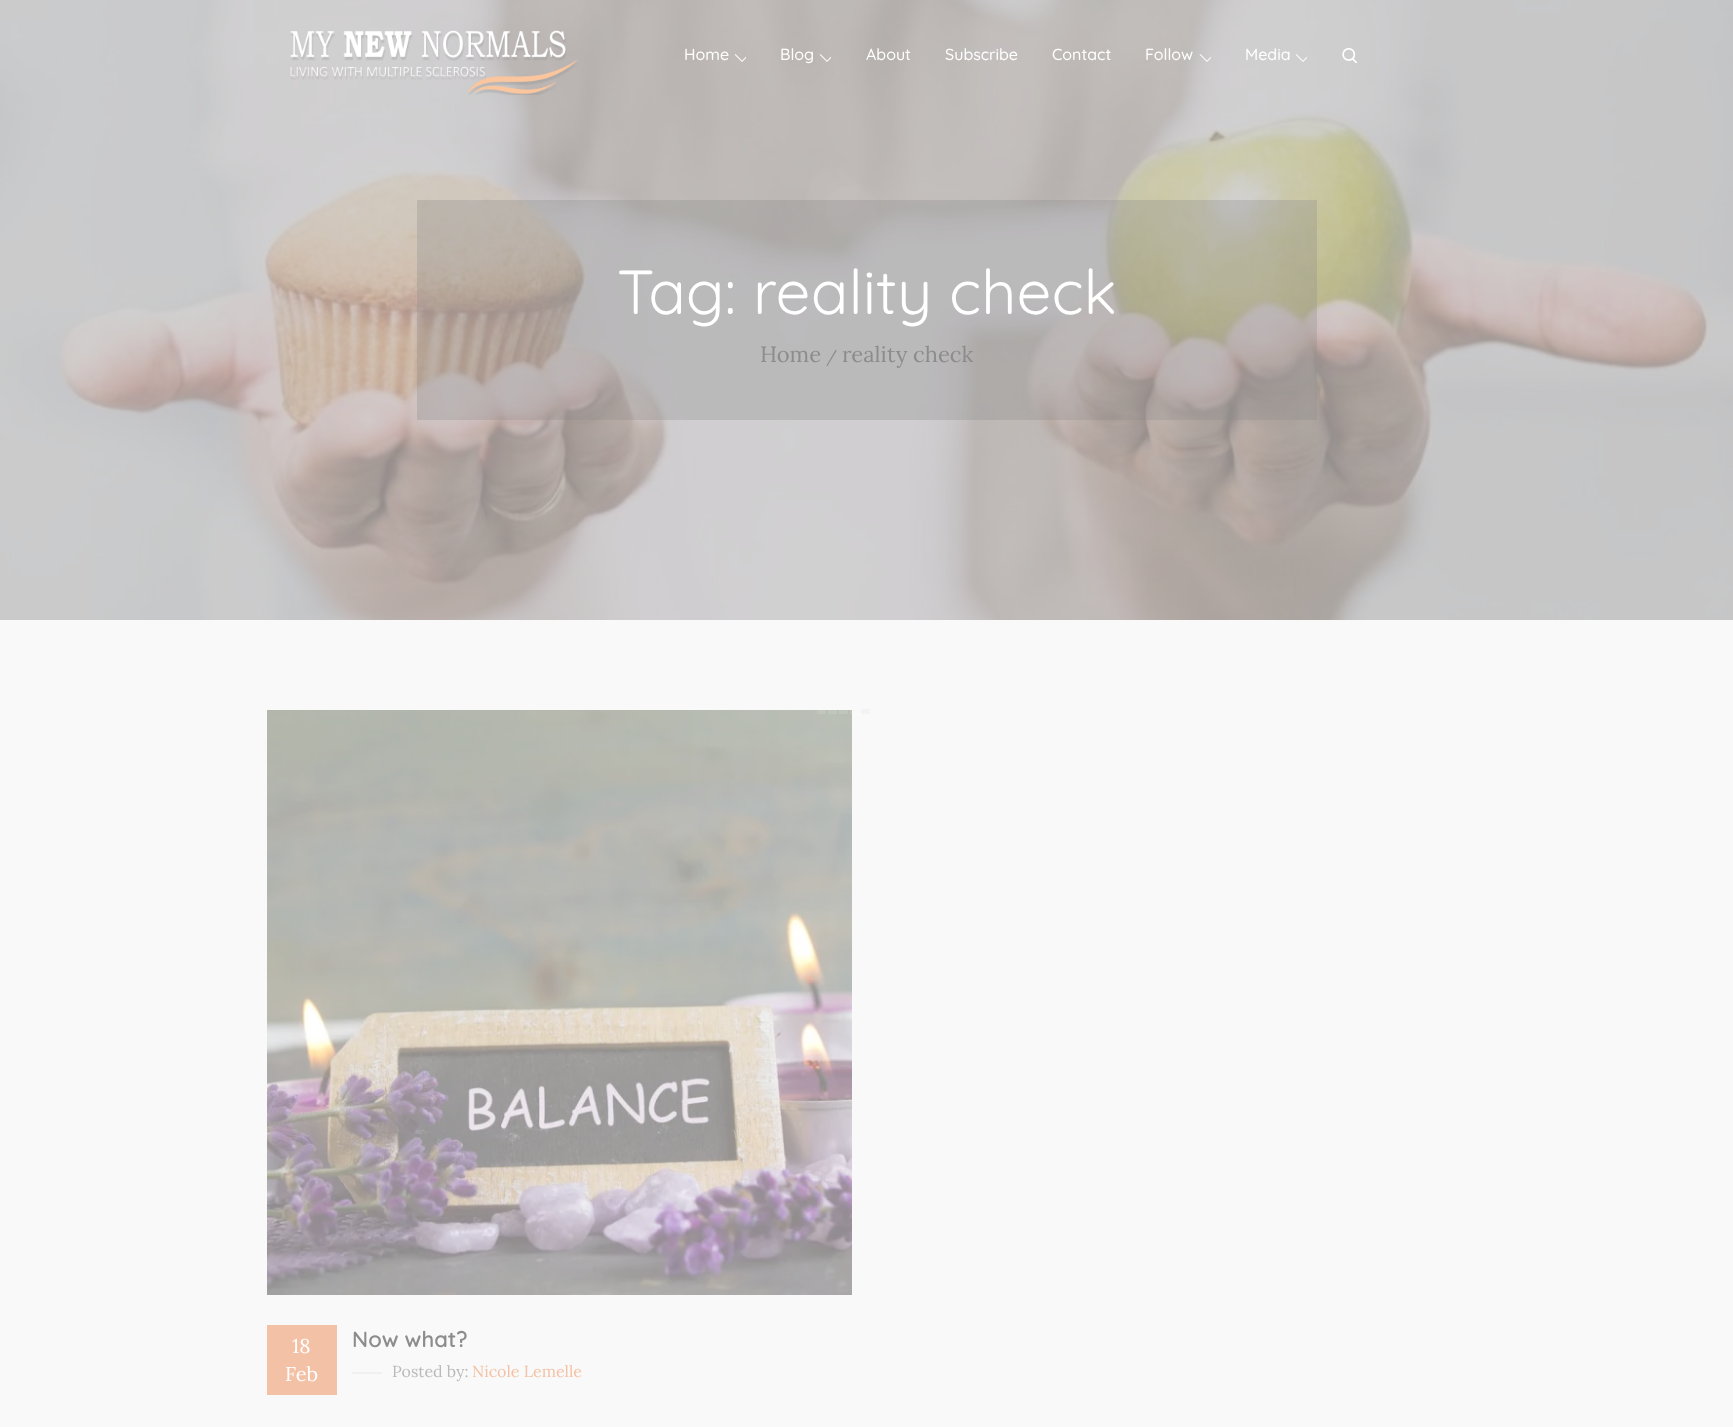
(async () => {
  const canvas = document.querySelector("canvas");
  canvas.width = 1733;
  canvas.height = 1427;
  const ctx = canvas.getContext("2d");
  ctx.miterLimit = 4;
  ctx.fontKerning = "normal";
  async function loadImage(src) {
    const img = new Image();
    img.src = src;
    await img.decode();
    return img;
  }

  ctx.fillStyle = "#f9f9f9";
  ctx.fillRect(0, 0, 1733, 1427);
  ctx.drawImage(await loadImage("img/7.png"), 0, 0, 1733, 620);
  ctx.drawImage(await loadImage("img/1.png"), 290, 30, 288, 65);
  ctx.drawImage(await loadImage("img/2.png"), 734, 54, 12, 8);
  ctx.drawImage(await loadImage("img/3.png"), 819, 54, 12, 8);
  ctx.drawImage(await loadImage("img/4.png"), 1199, 54, 12, 8);
  ctx.drawImage(await loadImage("img/5.png"), 1295, 54, 12, 8);
  ctx.drawImage(await loadImage("img/6.png"), 1342, 48, 15, 15);
  ctx.fillStyle = "rgba(140, 140, 140, 0.3)";
  ctx.fillRect(417, 200, 900, 220);
  ctx.drawImage(await loadImage("img/8.png"), 267, 710, 585, 585);
  for (const [x, y, w, h, color] of [
    [267, 1325, 70, 70, "#f3c2a6"],
    [352, 1372, 30, 2, "#f0f0f0"],
    [817, 710, 9, 4, "rgba(255, 255, 255, 0.11)"],
    [828, 710, 9, 4, "rgba(255, 255, 255, 0.11)"],
    [839, 710, 9, 4, "rgba(255, 255, 255, 0.11)"],
    [850, 710, 9, 4, "rgba(255, 255, 255, 0.11)"],
    [861, 709, 9, 5, "#f3f3f3"],
  ]) {
    ctx.fillStyle = color;
    ctx.fillRect(x, y, w, h);
  }
  ctx.font = "500 16px Quicksand";
  ctx.fillStyle = "#ffffff";
  for (const [text, x, y] of [
    ["Home", 684, 60],
    ["Blog", 780, 60],
    ["About", 866, 60],
    ["Subscribe", 945, 60],
    ["Contact", 1052, 60],
    ["Follow", 1145, 60],
    ["Media", 1245, 60],
  ]) {
    ctx.fillText(text, x, y);
  }
  ctx.font = "62px Quicksand";
  ctx.fillText("Tag: reality check", 617, 314);
  ctx.font = "22px Lora";
  ctx.fillStyle = "#8c8c8c";
  ctx.fillText("Home", 760, 362);
  ctx.font = "16px Lora";
  ctx.fillText("/", 826, 362);
  ctx.font = "22px Lora";
  ctx.fillText("reality check", 842, 362);
  ctx.font = "20px Lora";
  ctx.fillStyle = "#ffffff";
  ctx.fillText("18", 292, 1353);
  ctx.fillText("Feb", 285, 1381);
  ctx.font = "600 22px Quicksand";
  ctx.fillStyle = "#8c8c8c";
  ctx.fillText("Now what?", 352, 1347);
  ctx.font = "16px Lora";
  ctx.fillStyle = "#bababa";
  ctx.fillText("Posted by:", 392, 1377);
  ctx.fillStyle = "#f3c2a6";
  ctx.fillText("Nicole Lemelle", 472, 1377);
})();
